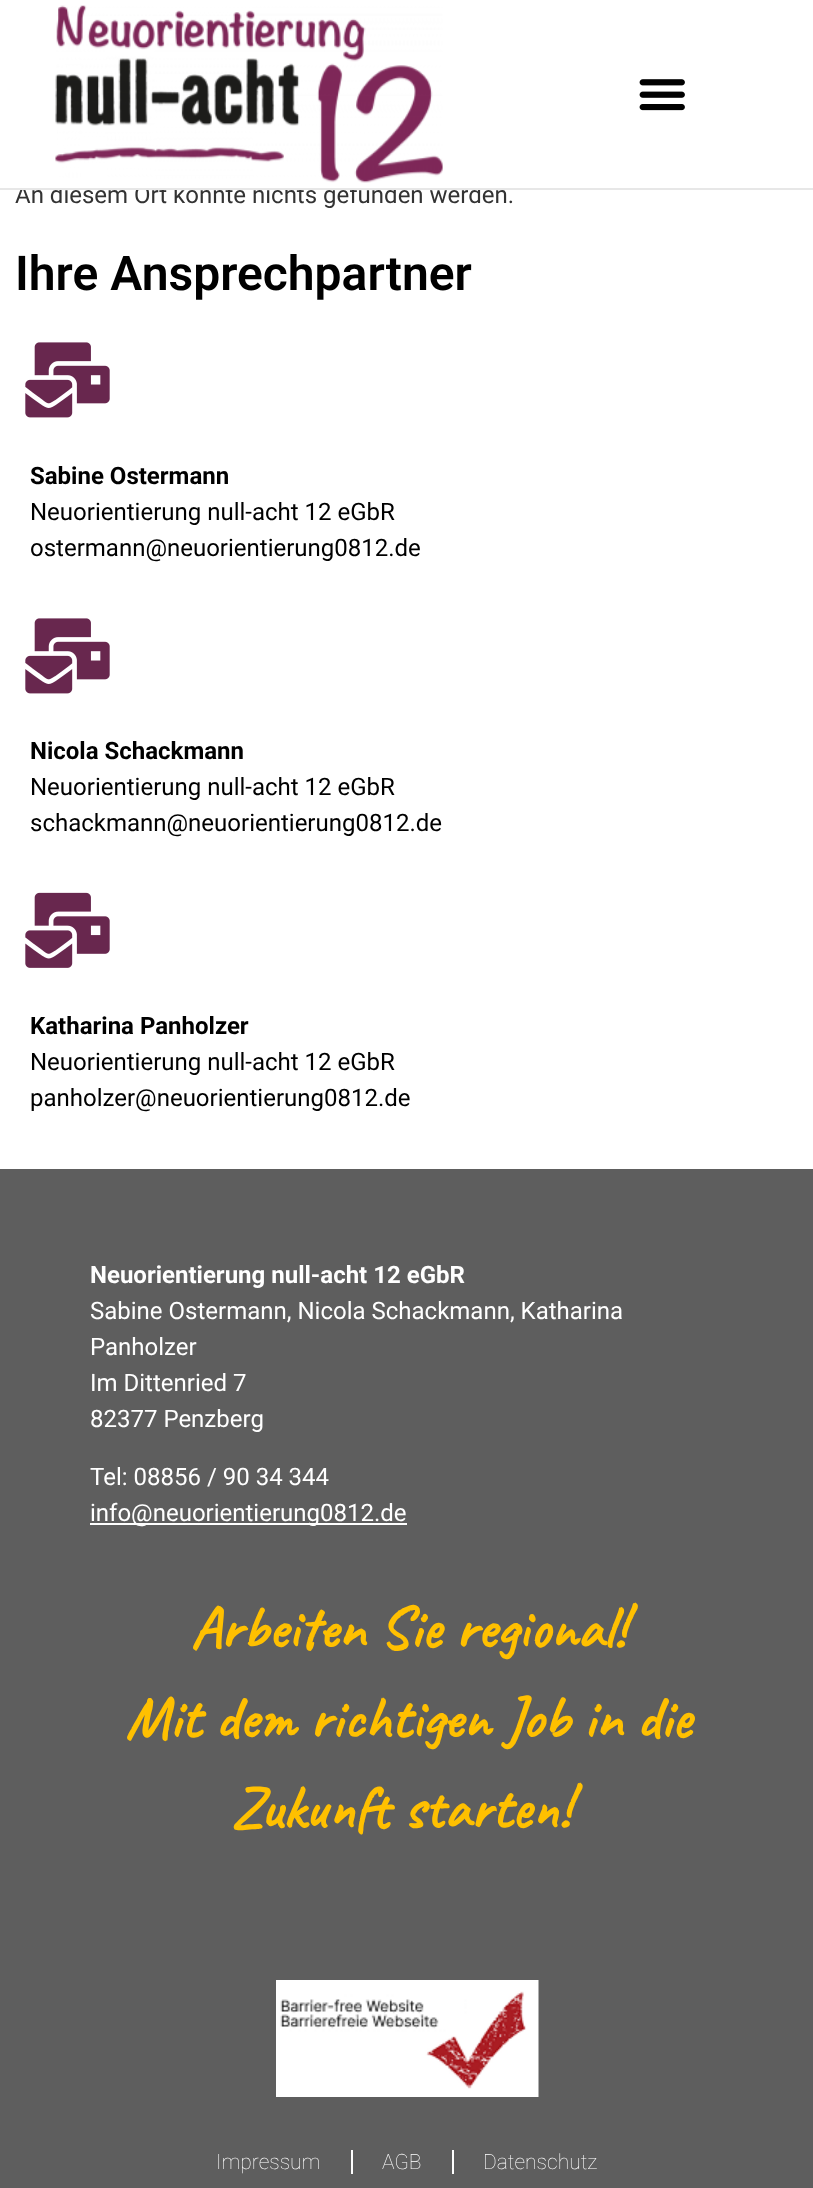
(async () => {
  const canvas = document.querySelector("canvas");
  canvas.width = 813;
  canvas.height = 2188;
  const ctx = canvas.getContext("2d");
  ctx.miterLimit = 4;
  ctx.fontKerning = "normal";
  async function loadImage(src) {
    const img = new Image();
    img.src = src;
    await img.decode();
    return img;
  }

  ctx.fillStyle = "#ffffff";
  ctx.fillRect(0, 0, 813, 2188);
  ctx.drawImage(await loadImage("img/1.png"), 55, 5, 388, 178);
  ctx.drawImage(await loadImage("img/2.png"), 639, 79, 46, 32);
  ctx.drawImage(await loadImage("img/3.png"), 25, 342, 85, 76);
  ctx.drawImage(await loadImage("img/3.png"), 25, 618, 85, 76);
  ctx.drawImage(await loadImage("img/4.png"), 25, 892, 85, 76);
  ctx.fillStyle = "#5e5e5e";
  ctx.fillRect(0, 1169, 813, 1019);
  ctx.fillStyle = "#ffffff";
  ctx.fillRect(90, 1523, 317, 2);
  ctx.drawImage(await loadImage("img/5.png"), 276, 1980, 263, 117);
  ctx.fillRect(351, 2150, 2, 24);
  ctx.fillRect(452, 2150, 2, 24);
  ctx.font = "24px Roboto";
  ctx.fillStyle = "#333333";
  ctx.fillText("An diesem Ort konnte nichts gefunden werden.", 15, 203);
  ctx.fillStyle = "#e7e7e7";
  ctx.fillRect(0, 188, 813, 2);
  ctx.fillStyle = "#ffffff";
  ctx.fillRect(21, 184, 460, 4);
  ctx.font = "600 48px Roboto";
  ctx.fillStyle = "#000000";
  ctx.fillText("Ihre Ansprechpartner", 15, 290);
  ctx.font = "bold 24px Roboto";
  ctx.fillText("Sabine Ostermann", 30, 484);
  ctx.font = "24px Roboto";
  ctx.fillText("Neuorientierung null-acht 12 eGbR", 30, 520);
  ctx.fillText("ostermann@neuorientierung0812.de", 30, 556);
  ctx.font = "bold 24px Roboto";
  ctx.fillText("Nicola Schackmann", 30, 759);
  ctx.font = "24px Roboto";
  ctx.fillText("Neuorientierung null-acht 12 eGbR", 30, 795);
  ctx.fillText("schackmann@neuorientierung0812.de", 30, 831);
  ctx.font = "bold 24px Roboto";
  ctx.fillText("Katharina Panholzer", 30, 1034);
  ctx.font = "24px Roboto";
  ctx.fillText("Neuorientierung null-acht 12 eGbR", 30, 1070);
  ctx.fillText("panholzer@neuorientierung0812.de", 30, 1106);
  ctx.font = "bold 24px Roboto";
  ctx.fillStyle = "#ffffff";
  ctx.fillText("Neuorientierung null-acht 12 eGbR", 90, 1283);
  ctx.font = "24px Roboto";
  for (const [text, x, y] of [
    ["Sabine Ostermann, Nicola Schackmann, Katharina", 90, 1319],
    ["Panholzer", 90, 1355],
    ["Im Dittenried 7", 90, 1391],
    ["82377 Penzberg", 90, 1427],
    ["Tel: 08856 / 90 34 344", 90, 1485],
    ["info@neuorientierung0812.de", 90, 1521],
  ]) {
    ctx.fillText(text, x, y);
  }
  ctx.font = "bold 60px Caveat";
  ctx.fillStyle = "#ffc000";
  for (const [text, x, y] of [
    ["Arbeiten Sie regional!", 190, 1648],
    ["Mit dem richtigen Job in die", 125, 1738],
    ["Zukunft starten!", 230, 1828],
  ]) {
    ctx.fillText(text, x, y);
  }
  ctx.font = "100 21px Roboto";
  ctx.fillStyle = "#ffffff";
  for (const [text, x, y] of [
    ["Impressum", 216, 2169],
    ["AGB", 382, 2169],
    ["Datenschutz", 483, 2169],
  ]) {
    ctx.fillText(text, x, y);
  }
})();
